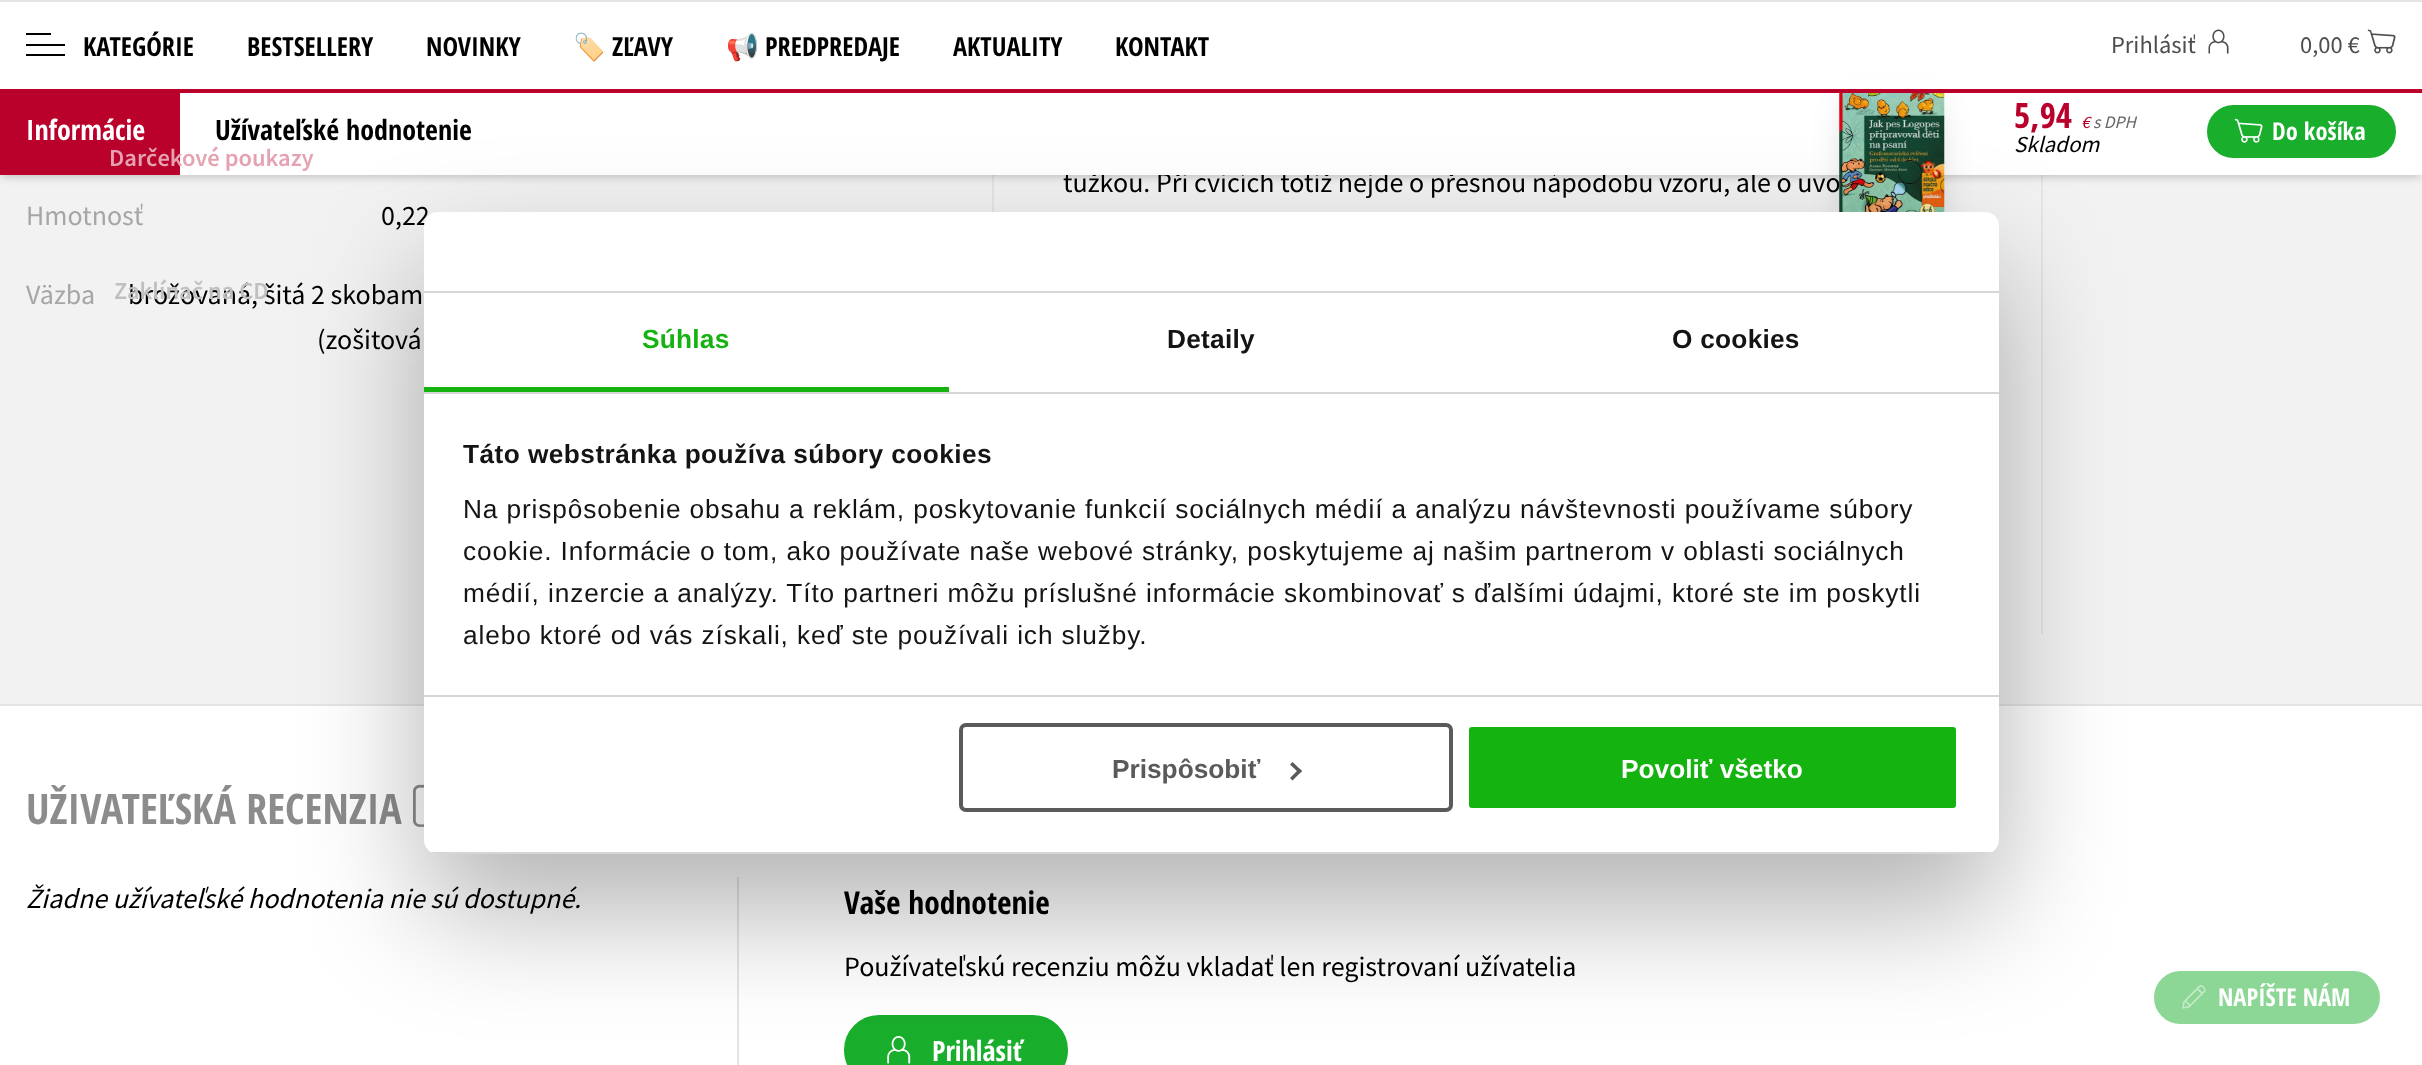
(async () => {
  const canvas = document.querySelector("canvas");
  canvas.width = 2422;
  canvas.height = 1065;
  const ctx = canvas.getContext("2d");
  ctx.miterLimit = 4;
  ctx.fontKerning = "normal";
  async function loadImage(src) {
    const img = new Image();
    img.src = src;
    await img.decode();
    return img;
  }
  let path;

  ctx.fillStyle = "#ffffff";
  ctx.fillRect(0, 0, 2422, 1065);
  for (const [x, y, w, h, color] of [
    [0, 0, 2422, 2, "#e5e5e5"],
    [26, 44, 39, 2, "#000000"],
    [26, 33, 25, 2, "#000000"],
    [26, 54, 39, 2, "#000000"],
  ]) {
    ctx.fillStyle = color;
    ctx.fillRect(x, y, w, h);
  }
  ctx.drawImage(await loadImage("img/1.png"), 2208, 29, 21, 25);
  ctx.drawImage(await loadImage("img/2.png"), 2367, 29, 29, 25);
  for (const [x, y, w, h, color] of [
    [0, 175, 2422, 529, "#f2f2f2"],
    [992, 175, 2, 37, "#e5e5e5"],
    [2041, 175, 2, 459, "#e5e5e5"],
  ]) {
    ctx.fillStyle = color;
    ctx.fillRect(x, y, w, h);
  }
  ctx.fillStyle = "rgba(0, 0, 0, 0.2)";
  ctx.filter = "blur(4.5px)";
  ctx.beginPath();
  ctx.rect(2, 93, 2418, 84);
  ctx.fill();
  ctx.filter = "none";
  ctx.fillStyle = "#b9012b";
  ctx.fillRect(0, 93, 180, 82);
  ctx.fillStyle = "#e5e5e5";
  ctx.fillRect(0, 704, 2422, 2);
  ctx.drawImage(await loadImage("img/5.png"), 413, 784, 11, 43);
  ctx.fillRect(737, 877, 2, 188);
  ctx.fillStyle = "#1aae2d";
  ctx.beginPath();
  ctx.roundRect(845, 1016, 222, 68, 34);
  ctx.fill();
  ctx.strokeStyle = "#1aae2d";
  ctx.lineWidth = 2;
  ctx.stroke();
  ctx.drawImage(await loadImage("img/6.png"), 887, 1036, 24, 28);
  ctx.fillStyle = "#8dd796";
  ctx.beginPath();
  ctx.roundRect(2155, 972, 224, 51, 25.5);
  ctx.fill();
  ctx.strokeStyle = "#8dd796";
  ctx.stroke();
  ctx.drawImage(await loadImage("img/7.png"), 2182, 985, 24, 24);
  ctx.font = "bold 26.25px Open Sans Condensed";
  ctx.fillStyle = "#000000";
  ctx.fillText("KATEGÓRIE", 83, 56);
  ctx.fillText("NOVINKY", 426, 56);
  ctx.font = "bold 26.25px Noto Color Emoji";
  ctx.fillText("🏷️", 573, 56);
  ctx.font = "bold 26.25px Open Sans Condensed";
  ctx.fillText("ZĽAVY", 612, 56);
  ctx.font = "bold 26.25px Noto Color Emoji";
  ctx.fillText("📢", 726, 56);
  ctx.font = "bold 26.25px Open Sans Condensed";
  for (const [text, x, y] of [
    ["PREDPREDAJE", 765, 56],
    ["KONTAKT", 1115, 56],
    ["BESTSELLERY", 247, 56],
    ["AKTUALITY", 953, 56],
  ]) {
    ctx.fillText(text, x, y);
  }
  ctx.font = "24.5px Source Sans Pro";
  ctx.fillStyle = "#4d4d4d";
  ctx.fillText("Prihlásiť", 2111, 53);
  ctx.fillText("0,00 €", 2300, 53);
  ctx.font = "bold 28px Open Sans Condensed";
  ctx.fillStyle = "#ffffff";
  ctx.fillText("Informácie", 26, 140);
  ctx.font = "28px Source Sans Pro";
  ctx.fillStyle = "#a6a6a6";
  ctx.fillText("Hmotnosť", 26, 225);
  ctx.fillStyle = "#000000";
  ctx.fillText("0,22", 381, 225);
  ctx.fillStyle = "#a6a6a6";
  ctx.fillText("Väzba", 26, 304);
  ctx.fillStyle = "#000000";
  ctx.fillText("brožovaná, šitá 2 skobam", 128, 304);
  ctx.font = "600 24.5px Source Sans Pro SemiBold";
  ctx.fillStyle = "#c0c0c0";
  ctx.fillText("Zaklínač na CD", 114, 299);
  ctx.font = "28px Source Sans Pro";
  ctx.fillStyle = "#000000";
  ctx.fillText("(zošitová", 317, 349);
  ctx.fillText("tužkou. Při cvicích totiž nejde o přesnou nápodobu vzoru, ale o uvo", 1063, 192);
  ctx.fillStyle = "#ffffff";
  ctx.fillRect(180, 93, 2242, 82);
  ctx.font = "600 24.5px Source Sans Pro SemiBold";
  ctx.fillStyle = "#e5a2b1";
  ctx.fillText("Darčekové poukazy", 109, 166);
  ctx.fillStyle = "rgba(0, 0, 0, 0.2)";
  ctx.filter = "blur(17.5px)";
  ctx.beginPath();
  ctx.rect(1850, 107, 84, 128);
  ctx.fill();
  ctx.filter = "none";
  ctx.fillStyle = "#b9012b";
  ctx.fillRect(0, 89, 2422, 4);
  ctx.fillStyle = "#ffffff";
  ctx.fillRect(0, 78, 2422, 11);
  ctx.fillStyle = "#1aae2d";
  ctx.beginPath();
  ctx.roundRect(2208, 106, 187, 51, 25.5);
  ctx.fill();
  ctx.strokeStyle = "#1aae2d";
  ctx.stroke();
  ctx.drawImage(await loadImage("img/4.png"), 2234, 118, 29, 25);
  ctx.font = "bold 24.5px Open Sans Condensed";
  ctx.fillStyle = "#ffffff";
  ctx.fillText("Do košíka", 2272, 140);
  ctx.drawImage(await loadImage("img/3.png"), 1839, 93, 106, 119);
  ctx.font = "italic 23px Source Sans Pro";
  ctx.fillStyle = "#000000";
  ctx.fillText("Skladom", 2014, 152);
  ctx.font = "italic 17.5px Source Sans Pro";
  ctx.fillStyle = "#666666";
  ctx.fillText("s DPH", 2093, 128);
  ctx.fillStyle = "#b9012b";
  ctx.fillText("€", 2081, 128);
  ctx.font = "bold 35px Open Sans Condensed";
  ctx.fillText("5,94", 2014, 128);
  ctx.font = "bold 28px Open Sans Condensed";
  ctx.fillStyle = "#000000";
  ctx.fillText("Užívateľské hodnotenie", 215, 140);
  ctx.font = "bold 42px Open Sans Condensed";
  ctx.fillStyle = "#8c8c8c";
  ctx.fillText("UŽIVATEĽSKÁ RECENZIA", 26, 824);
  ctx.font = "italic 28px Source Sans Pro";
  ctx.fillStyle = "#000000";
  ctx.fillText("Žiadne užívateľské hodnotenia nie sú dostupné.", 26, 908);
  ctx.font = "bold 31.5px Open Sans Condensed";
  ctx.fillText("Vaše hodnotenie", 844, 914);
  ctx.font = "28px Source Sans Pro";
  ctx.fillText("Používateľskú recenziu môžu vkladať len registrovaní užívatelia", 844, 976);
  ctx.font = "bold 28px Open Sans Condensed";
  ctx.fillStyle = "#ffffff";
  ctx.fillText("Prihlásiť", 932, 1061);
  ctx.fillStyle = "rgba(0, 0, 0, 0.3)";
  ctx.filter = "blur(59.5px)";
  ctx.beginPath();
  ctx.roundRect(424, 268, 1575, 642, 14);
  ctx.fill();
  ctx.filter = "none";
  ctx.fillStyle = "#ffffff";
  ctx.beginPath();
  ctx.roundRect(424, 212, 1575, 642, 14);
  ctx.fill();
  for (const [x, y, w, h, color] of [
    [424, 291, 1575, 2, "#d6d6d6"],
    [424, 392, 1575, 2, "#d6d6d6"],
    [424, 387, 525, 5, "#14b310"],
  ]) {
    ctx.fillStyle = color;
    ctx.fillRect(x, y, w, h);
  }
  ctx.letterSpacing = "0.25px";
  ctx.font = "bold 26.25px Liberation Sans";
  ctx.fillText("Súhlas", 642, 348);
  ctx.fillStyle = "#141414";
  ctx.fillText("Detaily", 1167, 348);
  ctx.fillText("O cookies", 1672, 348);
  ctx.fillStyle = "#d6d6d6";
  ctx.fillRect(424, 695, 1575, 2);
  ctx.letterSpacing = "0.45px";
  ctx.fillStyle = "#141414";
  ctx.fillText("Táto webstránka používa súbory cookies", 463, 463);
  ctx.letterSpacing = "0.88px";
  ctx.font = "26.25px Liberation Sans";
  for (const [text, x, y] of [
    ["Na prispôsobenie obsahu a reklám, poskytovanie funkcií sociálnych médií a analýzu návštevnosti používame súbory", 463, 518],
    ["cookie. Informácie o tom, ako používate naše webové stránky, poskytujeme aj našim partnerom v oblasti sociálnych", 463, 560],
    ["médií, inzercie a analýzy. Títo partneri môžu príslušné informácie skombinovať s ďalšími údajmi, ktoré ste im poskytli", 463, 602],
    ["alebo ktoré od vás získali, keď ste používali ich služby.", 463, 644],
  ]) {
    ctx.fillText(text, x, y);
  }
  ctx.save();
  ctx.beginPath();
  ctx.roundRect(424, 212, 1575, 642, 14);
  ctx.clip();
  ctx.fillStyle = "#d6d6d6";
  ctx.fillRect(424, 852, 1575, 2);
  ctx.restore();
  ctx.beginPath();
  ctx.roundRect(961, 725, 490, 85, 5);
  ctx.strokeStyle = "#5b5a5a";
  ctx.lineWidth = 4;
  ctx.stroke();
  ctx.letterSpacing = "0px";
  ctx.font = "bold 26.25px Liberation Sans";
  ctx.fillStyle = "#5b5a5a";
  ctx.fillText("Prispôsobiť", 1112, 778);
  path = new Path2D("M1292.5 762L1302 771L1299.5 773.5L1290 764.5Z");
  ctx.fill(path);
  path = new Path2D("M1299.5 768.5L1302 771L1292.5 780.5L1290 778Z");
  ctx.fill(path);
  ctx.fillStyle = "#14b310";
  ctx.beginPath();
  ctx.roundRect(1467, 725, 491, 85, 5);
  ctx.fill();
  ctx.strokeStyle = "#ffffff";
  ctx.stroke();
  ctx.fillStyle = "#ffffff";
  ctx.fillText("Povoliť všetko", 1621, 778);
  ctx.font = "bold 24.5px Open Sans Condensed";
  ctx.fillText("NAPÍŠTE NÁM", 2218, 1006);
})();
